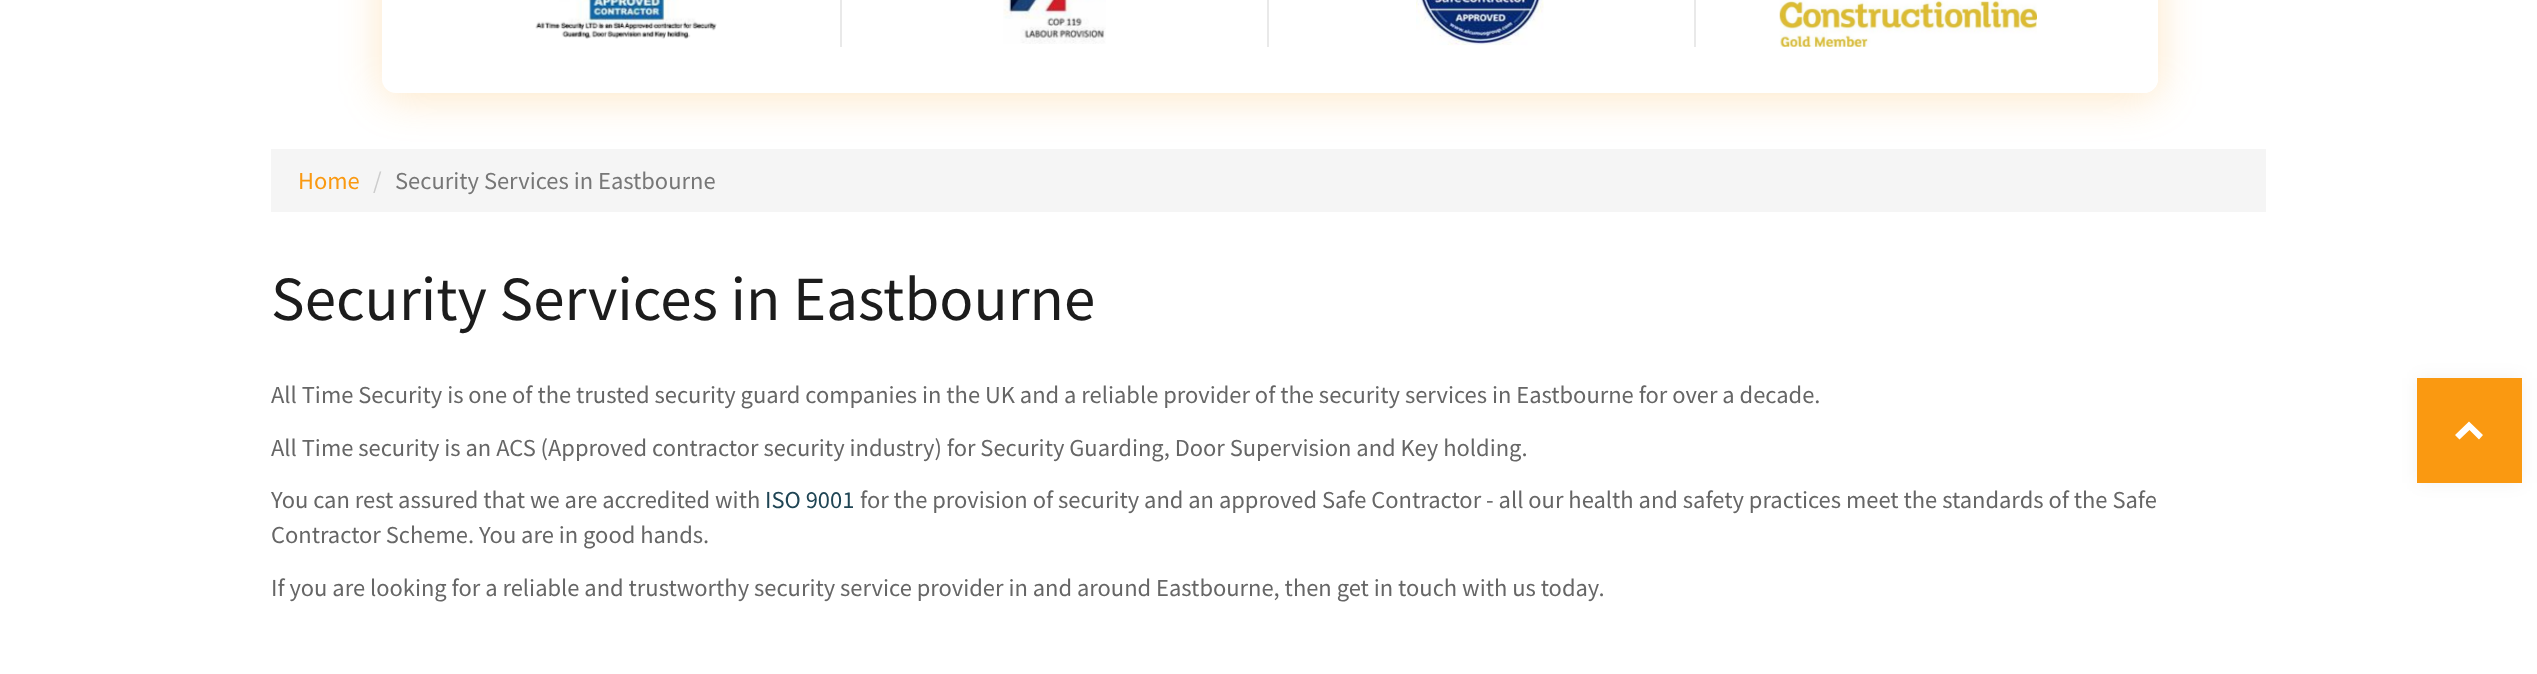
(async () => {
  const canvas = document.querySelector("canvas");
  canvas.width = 2537;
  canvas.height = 674;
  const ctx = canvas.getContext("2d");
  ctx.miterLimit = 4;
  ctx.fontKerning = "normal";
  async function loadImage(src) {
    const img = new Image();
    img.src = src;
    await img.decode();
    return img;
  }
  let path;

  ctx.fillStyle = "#ffffff";
  ctx.fillRect(0, 0, 2537, 674);
  ctx.fillStyle = "rgba(250, 153, 17, 0.24)";
  ctx.filter = "blur(21px)";
  ctx.beginPath();
  ctx.roundRect(382, -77, 1776, 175, 14);
  ctx.fill();
  ctx.filter = "none";
  ctx.fillStyle = "#ffffff";
  ctx.beginPath();
  ctx.roundRect(382, -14, 1776, 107, 14);
  ctx.fill();
  ctx.fillStyle = "#e9e9e9";
  ctx.fillRect(840, 0, 2, 47);
  ctx.drawImage(await loadImage("img/1.png"), 535, 0, 182, 39);
  ctx.fillRect(1267, 0, 2, 47);
  ctx.drawImage(await loadImage("img/2.png"), 1003, 0, 103, 44);
  ctx.fillRect(1694, 0, 2, 47);
  ctx.drawImage(await loadImage("img/3.png"), 1416, 0, 128, 46);
  ctx.drawImage(await loadImage("img/4.png"), 1779, 0, 258, 47);
  ctx.fillStyle = "#ffffff";
  path = new Path2D("M2086-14H2144C2151.5-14 2158-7.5 2158 0V79C2158 86.5 2151.5 93 2144 93H2086Z");
  ctx.fill(path);
  ctx.fillStyle = "#f5f5f5";
  ctx.fillRect(271, 149, 1995, 63);
  ctx.fillStyle = "rgba(0, 0, 0, 0.05)";
  ctx.filter = "blur(9px)";
  ctx.beginPath();
  ctx.rect(2417, 378, 105, 105);
  ctx.fill();
  ctx.filter = "none";
  ctx.fillStyle = "#fa9911";
  ctx.fillRect(2417, 378, 105, 105);
  ctx.fillStyle = "#ffffff";
  path = new Path2D("M2469 421.5L2483 435L2479 439.5L2469.5 430L2459.5 439.5L2455 435Z");
  ctx.fill(path);
  ctx.font = "24.5px Source Sans Pro";
  ctx.fillStyle = "#fa9911";
  ctx.fillText("Home", 298, 189);
  ctx.fillStyle = "#cccccc";
  ctx.fillText("/", 373, 189);
  ctx.fillStyle = "#777777";
  ctx.fillText("Security Services in Eastbourne", 395, 189);
  ctx.font = "63px Source Sans Pro";
  ctx.fillStyle = "#1c1c1c";
  ctx.fillText("Security Services in Eastbourne", 271, 320);
  ctx.font = "24.5px Source Sans Pro";
  ctx.fillStyle = "#666666";
  for (const [text, x, y] of [
    ["All Time Security is one of the trusted security guard companies in the UK and a reliable provider of the security services in Eastbourne for over a decade.", 271, 403],
    ["All Time security is an ACS (Approved contractor security industry) for Security Guarding, Door Supervision and Key holding.", 271, 456],
    ["You can rest assured that we are accredited with", 271, 508],
  ]) {
    ctx.fillText(text, x, y);
  }
  ctx.fillStyle = "#1f4554";
  ctx.fillText("ISO 9001", 765, 508);
  ctx.fillStyle = "#666666";
  for (const [text, x, y] of [
    ["for the provision of security and an approved Safe Contractor - all our health and safety practices meet the standards of the Safe", 860, 508],
    ["Contractor Scheme. You are in good hands.", 271, 543],
    ["If you are looking for a reliable and trustworthy security service provider in and around Eastbourne, then get in touch with us today.", 271, 596],
  ]) {
    ctx.fillText(text, x, y);
  }
})();
